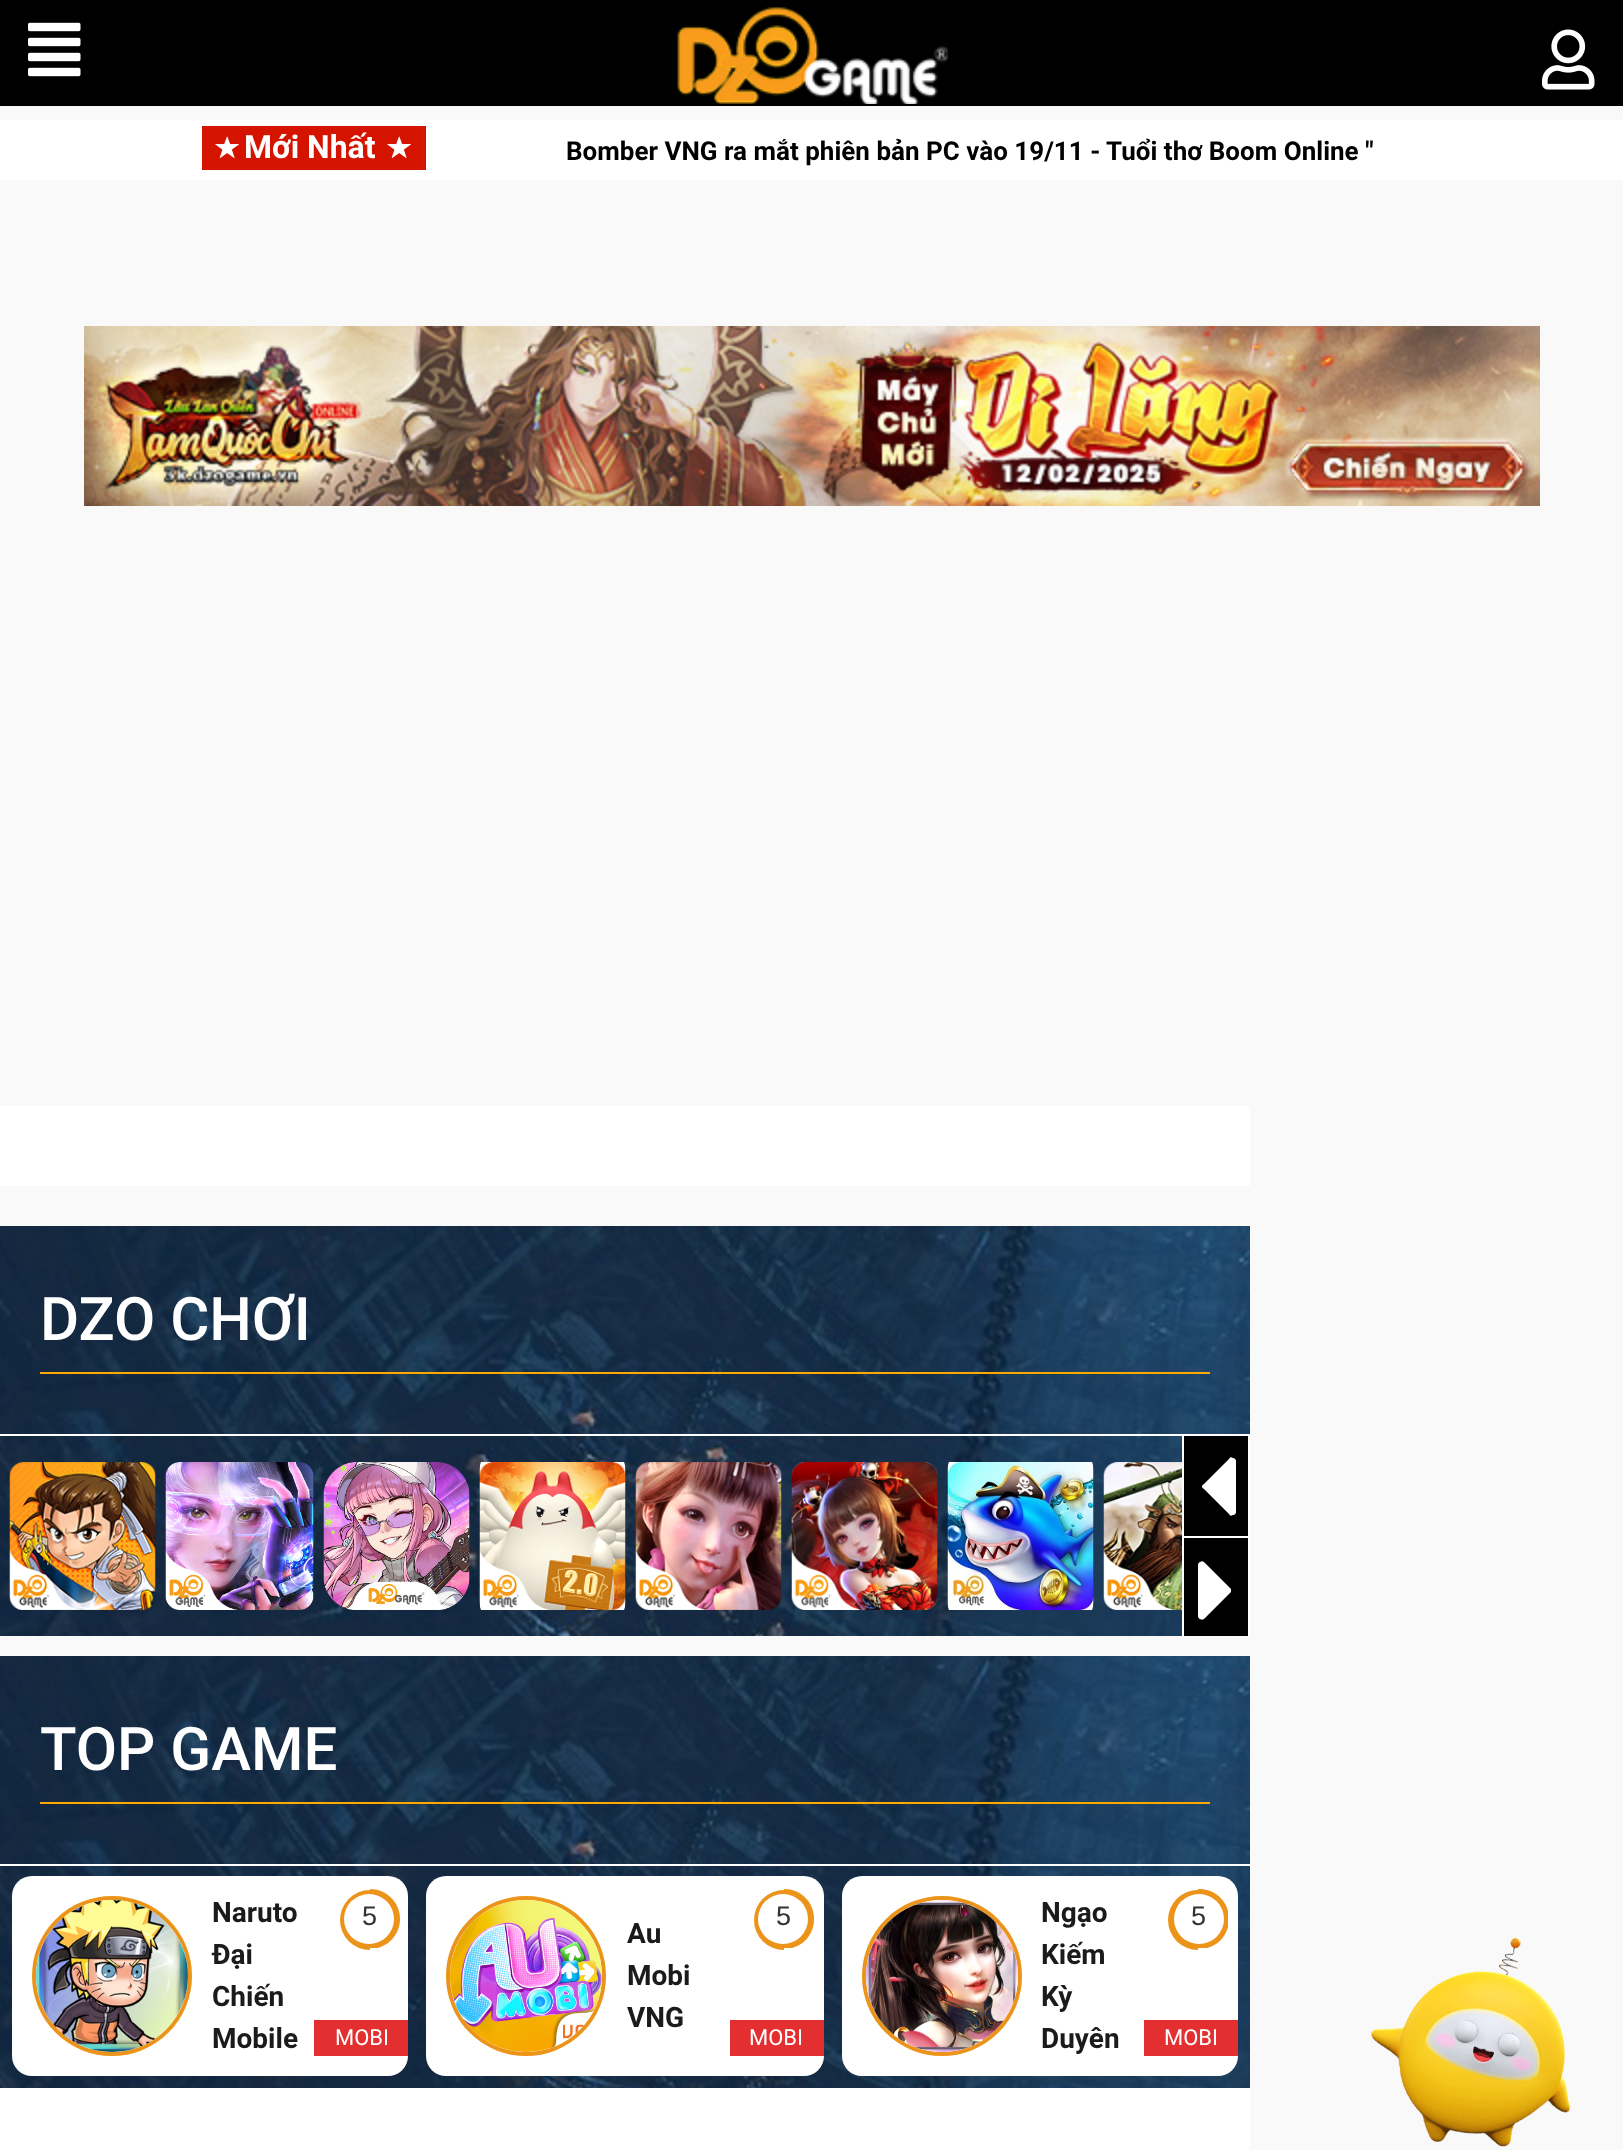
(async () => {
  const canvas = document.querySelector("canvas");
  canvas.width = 1623;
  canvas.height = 2150;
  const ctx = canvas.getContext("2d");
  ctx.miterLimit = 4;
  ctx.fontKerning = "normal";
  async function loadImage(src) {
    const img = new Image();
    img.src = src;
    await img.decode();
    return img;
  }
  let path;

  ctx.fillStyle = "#f9f9f9";
  ctx.fillRect(0, 0, 1623, 2150);
  ctx.fillStyle = "#000000";
  ctx.fillRect(0, 0, 1623, 106);
  ctx.drawImage(await loadImage("img/1.png"), 28, 22, 53, 55);
  ctx.drawImage(await loadImage("img/2.png"), 677, 7, 271, 97);
  ctx.drawImage(await loadImage("img/3.png"), 1542, 29, 53, 61);
  ctx.fillStyle = "#ffffff";
  ctx.fillRect(0, 120, 1623, 60);
  ctx.fillStyle = "#d51400";
  ctx.fillRect(202, 126, 224, 44);
  ctx.drawImage(await loadImage("img/4.png"), 215, 136, 24, 22);
  ctx.drawImage(await loadImage("img/4.png"), 387, 136, 24, 22);
  ctx.drawImage(await loadImage("img/5.png"), 84, 326, 1456, 180);
  ctx.fillStyle = "#ffffff";
  ctx.fillRect(0, 1106, 1250, 1044);
  ctx.fillStyle = "#f9f9f9";
  ctx.fillRect(0, 1186, 1250, 470);
  ctx.drawImage(await loadImage("img/6.png"), 0, 1226, 1250, 410);
  ctx.fillStyle = "#ffa800";
  ctx.fillRect(40, 1372, 1170, 2);
  ctx.fillStyle = "#ffffff";
  ctx.fillRect(0, 1434, 1250, 2);
  ctx.drawImage(await loadImage("img/7.png"), 9, 1462, 147, 148);
  ctx.drawImage(await loadImage("img/8.png"), 165, 1462, 149, 148);
  ctx.drawImage(await loadImage("img/9.png"), 323, 1462, 147, 148);
  ctx.drawImage(await loadImage("img/10.png"), 479, 1462, 147, 148);
  ctx.drawImage(await loadImage("img/11.png"), 635, 1462, 147, 148);
  ctx.drawImage(await loadImage("img/12.png"), 791, 1462, 147, 148);
  ctx.drawImage(await loadImage("img/13.png"), 947, 1462, 147, 148);
  ctx.drawImage(await loadImage("img/14.png"), 1103, 1462, 79, 148);
  ctx.fillStyle = "#000000";
  ctx.fillRect(1184, 1538, 64, 98);
  ctx.save();
  ctx.beginPath();
  ctx.rect(0, 1436, 1250, 200);
  ctx.clip();
  ctx.strokeStyle = "#ffffff";
  ctx.lineWidth = 2;
  ctx.strokeRect(1183, 1533, 66, 114);
  ctx.restore();
  ctx.fillRect(1184, 1436, 64, 100);
  ctx.save();
  ctx.beginPath();
  ctx.rect(0, 1436, 1250, 200);
  ctx.clip();
  ctx.strokeStyle = "#ffffff";
  ctx.lineWidth = 2;
  ctx.strokeRect(1183, 1435, 66, 102);
  ctx.restore();
  ctx.fillStyle = "#ffffff";
  path = new Path2D("M1236 1461V1512C1236 1513 1235 1515 1233 1515C1231 1516 1230 1516 1229 1514L1204 1489C1203 1488 1202 1488 1202 1486C1202 1485 1203 1485 1204 1484L1229 1459C1230 1457 1231 1457 1233 1458C1235 1458 1236 1460 1236 1461Z");
  ctx.fill(path);
  path = new Path2D("M1198 1616V1565C1198 1564 1199 1562 1200 1562C1202 1561 1203 1561 1205 1563L1230 1588C1231 1589 1231 1589 1231 1590C1231 1592 1231 1592 1230 1593L1205 1618C1203 1620 1202 1620 1200 1619C1199 1619 1198 1617 1198 1616Z");
  ctx.fill(path);
  ctx.drawImage(await loadImage("img/15.png"), 0, 1656, 1250, 432);
  ctx.fillStyle = "#ffa800";
  ctx.fillRect(40, 1802, 1170, 2);
  ctx.fillStyle = "#ffffff";
  ctx.fillRect(0, 1864, 1250, 2);
  ctx.beginPath();
  ctx.roundRect(12, 1876, 396, 200, 20);
  ctx.fill();
  ctx.beginPath();
  ctx.arc(112, 1976, 78, 0, Math.PI * 2);
  ctx.strokeStyle = "#ec9419";
  ctx.lineWidth = 4;
  ctx.stroke();
  ctx.drawImage(await loadImage("img/16.png"), 36, 1900, 152, 152);
  ctx.fillStyle = "#ec9419";
  ctx.beginPath();
  ctx.roundRect(340, 1890, 30, 60, [30, 0, 0, 30]);
  ctx.fill();
  ctx.save();
  ctx.beginPath();
  ctx.rect(370, 1888, 30, 60);
  ctx.clip();
  path = new Path2D("M370 1949C353 1949 340 1936 340 1919C340 1902 353 1889 370 1889C386 1889 400 1902 400 1919C400 1936 386 1949 370 1949Z");
  ctx.fill(path);
  ctx.restore();
  ctx.fillStyle = "#ffffff";
  ctx.beginPath();
  ctx.arc(369, 1919, 25, 0, Math.PI * 2);
  ctx.fill();
  ctx.fillStyle = "#e32f30";
  ctx.fillRect(314, 2020, 94, 36);
  ctx.fillStyle = "#ffffff";
  ctx.beginPath();
  ctx.roundRect(426, 1876, 398, 200, 20);
  ctx.fill();
  ctx.beginPath();
  ctx.arc(526, 1976, 78, 0, Math.PI * 2);
  ctx.stroke();
  ctx.drawImage(await loadImage("img/17.png"), 450, 1900, 152, 152);
  ctx.fillStyle = "#ec9419";
  ctx.beginPath();
  ctx.roundRect(754, 1890, 30, 60, [30, 0, 0, 30]);
  ctx.fill();
  ctx.save();
  ctx.beginPath();
  ctx.rect(784, 1888, 30, 60);
  ctx.clip();
  path = new Path2D("M784 1949C768 1949 754 1936 754 1919C754 1902 768 1889 784 1889C801 1889 814 1902 814 1919C814 1936 801 1949 784 1949Z");
  ctx.fill(path);
  ctx.restore();
  ctx.fillStyle = "#ffffff";
  ctx.beginPath();
  ctx.arc(783, 1919, 25, 0, Math.PI * 2);
  ctx.fill();
  ctx.fillStyle = "#e32f30";
  ctx.fillRect(730, 2020, 94, 36);
  ctx.fillStyle = "#ffffff";
  ctx.beginPath();
  ctx.roundRect(842, 1876, 396, 200, 20);
  ctx.fill();
  ctx.beginPath();
  ctx.arc(942, 1976, 78, 0, Math.PI * 2);
  ctx.stroke();
  ctx.drawImage(await loadImage("img/18.png"), 866, 1900, 152, 152);
  ctx.fillStyle = "#ec9419";
  ctx.beginPath();
  ctx.roundRect(1168, 1890, 30, 60, [30, 0, 0, 30]);
  ctx.fill();
  ctx.save();
  ctx.beginPath();
  ctx.rect(1198, 1888, 30, 60);
  ctx.clip();
  path = new Path2D("M1199 1949C1182 1949 1169 1936 1169 1919C1169 1902 1182 1889 1199 1889C1216 1889 1229 1902 1229 1919C1229 1936 1216 1949 1199 1949Z");
  ctx.fill(path);
  ctx.restore();
  ctx.fillStyle = "#ffffff";
  ctx.beginPath();
  ctx.arc(1199, 1919, 25, 0, Math.PI * 2);
  ctx.fill();
  ctx.fillStyle = "#e32f30";
  ctx.fillRect(1144, 2020, 94, 36);
  ctx.drawImage(await loadImage("img/19.png"), 1371, 1937, 200, 210);
  ctx.font = "bold 32px Roboto";
  ctx.fillStyle = "#ffffff";
  ctx.fillText("Mới Nhất", 244, 158);
  ctx.font = "bold 26px Roboto";
  ctx.fillStyle = "#000000";
  ctx.fillText("Bomber VNG ra mắt phiên bản PC vào 19/11 - Tuổi thơ Boom Online \"", 566, 160);
  ctx.font = "500 60px Roboto";
  ctx.fillStyle = "#ffffff";
  ctx.fillText("DZO CHƠI", 40, 1340);
  ctx.fillText("TOP GAME", 40, 1770);
  ctx.font = "bold 28px Roboto";
  ctx.fillStyle = "#1b1b1b";
  for (const [text, x, y] of [
    ["Naruto", 212, 1922],
    ["Đại", 212, 1964],
    ["Chiến", 212, 2006],
    ["Mobile", 212, 2048],
  ]) {
    ctx.fillText(text, x, y);
  }
  ctx.font = "27px Liberation Sans";
  ctx.fillStyle = "#333333";
  ctx.fillText("5", 362, 1925);
  ctx.font = "22px Roboto";
  ctx.fillStyle = "#ffffff";
  ctx.fillText("MOBI", 335, 2045);
  ctx.font = "27px Liberation Sans";
  ctx.fillStyle = "#333333";
  ctx.fillText("5", 776, 1925);
  ctx.font = "bold 28px Roboto";
  ctx.fillStyle = "#1b1b1b";
  for (const [text, x, y] of [
    ["Au", 627, 1943],
    ["Mobi", 627, 1985],
    ["VNG", 627, 2027],
  ]) {
    ctx.fillText(text, x, y);
  }
  ctx.font = "22px Roboto";
  ctx.fillStyle = "#ffffff";
  ctx.fillText("MOBI", 749, 2045);
  ctx.font = "bold 28px Roboto";
  ctx.fillStyle = "#1b1b1b";
  for (const [text, x, y] of [
    ["Ngạo", 1041, 1922],
    ["Kiếm", 1041, 1964],
    ["Kỳ", 1041, 2006],
    ["Duyên", 1041, 2048],
  ]) {
    ctx.fillText(text, x, y);
  }
  ctx.font = "27px Liberation Sans";
  ctx.fillStyle = "#333333";
  ctx.fillText("5", 1191, 1925);
  ctx.font = "22px Roboto";
  ctx.fillStyle = "#ffffff";
  ctx.fillText("MOBI", 1164, 2045);
})();
